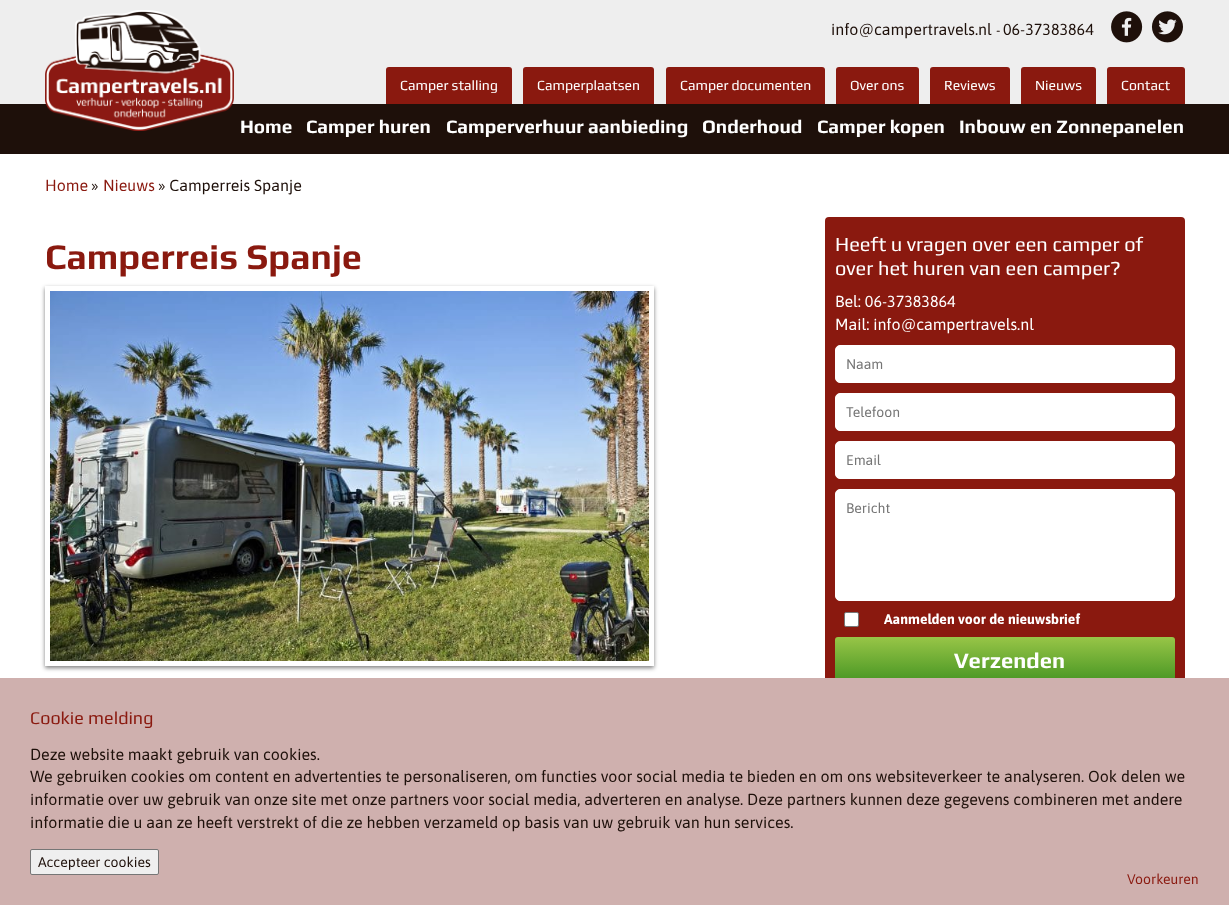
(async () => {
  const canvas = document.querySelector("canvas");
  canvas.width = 1229;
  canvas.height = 905;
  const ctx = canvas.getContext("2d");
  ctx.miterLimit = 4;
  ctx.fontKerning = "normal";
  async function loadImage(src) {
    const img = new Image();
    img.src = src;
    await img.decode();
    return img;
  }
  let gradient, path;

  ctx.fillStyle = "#ffffff";
  ctx.fillRect(0, 0, 1229, 905);
  ctx.fillStyle = "#eeeeee";
  ctx.fillRect(0, 0, 1229, 104);
  ctx.fillStyle = "#1e100a";
  ctx.fillRect(0, 104, 1229, 50);
  ctx.drawImage(await loadImage("img/1.png"), 45, 10, 189, 121);
  ctx.drawImage(await loadImage("img/2.png"), 1111, 11, 32, 32);
  ctx.drawImage(await loadImage("img/3.png"), 1151, 11, 32, 32);
  ctx.fillStyle = "#8a190f";
  ctx.beginPath();
  ctx.roundRect(386, 67, 126, 37, [3, 3, 0, 0]);
  ctx.fill();
  ctx.beginPath();
  ctx.roundRect(523, 67, 131, 37, [3, 3, 0, 0]);
  ctx.fill();
  ctx.beginPath();
  ctx.roundRect(666, 67, 159, 37, [3, 3, 0, 0]);
  ctx.fill();
  ctx.beginPath();
  ctx.roundRect(836, 67, 83, 37, [3, 3, 0, 0]);
  ctx.fill();
  ctx.beginPath();
  ctx.roundRect(930, 67, 80, 37, [3, 3, 0, 0]);
  ctx.fill();
  ctx.beginPath();
  ctx.roundRect(1021, 67, 75, 37, [3, 3, 0, 0]);
  ctx.fill();
  ctx.beginPath();
  ctx.roundRect(1107, 67, 78, 37, [3, 3, 0, 0]);
  ctx.fill();
  ctx.save();
  path = new Path2D("M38 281H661V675H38ZM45 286H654V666H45Z");
  ctx.clip(path, "evenodd");
  ctx.fillStyle = "rgba(0, 0, 0, 0.5)";
  ctx.filter = "blur(2px)";
  ctx.beginPath();
  ctx.rect(45, 288, 609, 380);
  ctx.fill();
  ctx.filter = "none";
  ctx.restore();
  ctx.drawImage(await loadImage("img/4.png"), 50, 291, 599, 370);
  ctx.beginPath();
  ctx.roundRect(825, 217, 360, 479, 4);
  ctx.fill();
  ctx.fillStyle = "#ffffff";
  ctx.beginPath();
  ctx.roundRect(835.5, 345.5, 339, 37, 4.5);
  ctx.fill();
  ctx.strokeStyle = "#ffffff";
  ctx.stroke();
  ctx.beginPath();
  ctx.roundRect(835.5, 393.5, 339, 37, 4.5);
  ctx.fill();
  ctx.stroke();
  ctx.beginPath();
  ctx.roundRect(835.5, 441.5, 339, 37, 4.5);
  ctx.fill();
  ctx.stroke();
  ctx.beginPath();
  ctx.roundRect(835.5, 489.5, 339, 111, 4.5);
  ctx.fill();
  ctx.stroke();
  ctx.beginPath();
  ctx.roundRect(844.5, 612.5, 14, 14, 1.5);
  ctx.fill();
  ctx.strokeStyle = "#767676";
  ctx.stroke();
  gradient = ctx.createLinearGradient(1005, 637, 1005, 685);
  gradient.addColorStop(0, "#98c547");
  gradient.addColorStop(1, "#429321");
  ctx.fillStyle = gradient;
  ctx.beginPath();
  ctx.roundRect(835, 637, 340, 48, 3);
  ctx.fill();
  ctx.fillStyle = "#cfb0ae";
  ctx.fillRect(0, 678, 1229, 227);
  ctx.fillStyle = "#efefef";
  ctx.beginPath();
  ctx.roundRect(30.5, 849.5, 128, 25, 1.5);
  ctx.fill();
  ctx.stroke();
  ctx.font = "16px Asap";
  ctx.fillStyle = "#1e100a";
  ctx.fillText("info@campertravels.nl", 831, 35);
  ctx.font = "14px Asap";
  ctx.fillText("-", 996, 35);
  ctx.font = "16px Asap";
  ctx.fillText("06-37383864", 1003, 35);
  ctx.font = "14px Play";
  ctx.fillStyle = "#ffffff";
  for (const [text, x, y] of [
    ["Camper stalling", 400, 90],
    ["Camperplaatsen", 537, 90],
    ["Camper documenten", 680, 90],
    ["Over ons", 850, 90],
    ["Reviews", 944, 90],
    ["Nieuws", 1035, 90],
    ["Contact", 1121, 90],
  ]) {
    ctx.fillText(text, x, y);
  }
  ctx.font = "bold 19px Play";
  for (const [text, x, y] of [
    ["Home", 240, 133],
    ["Camper huren", 306, 133],
    ["Camperverhuur aanbieding", 446, 133],
    ["Onderhoud", 702, 133],
    ["Camper kopen", 817, 133],
    ["Inbouw en Zonnepanelen", 959, 133],
  ]) {
    ctx.fillText(text, x, y);
  }
  ctx.font = "16px Asap";
  ctx.fillStyle = "#8a190f";
  ctx.fillText("Home", 45, 191);
  ctx.fillStyle = "#1e100a";
  ctx.fillText("»", 91, 191);
  ctx.fillStyle = "#8a190f";
  ctx.fillText("Nieuws", 103, 191);
  ctx.fillStyle = "#1e100a";
  ctx.fillText("» Camperreis Spanje", 158, 191);
  ctx.font = "bold 36px Play";
  ctx.fillStyle = "#8a190f";
  ctx.fillText("Camperreis Spanje", 45, 269);
  ctx.font = "20px Play";
  ctx.fillStyle = "#ffffff";
  ctx.fillText("Heeft u vragen over een camper of", 835, 251);
  ctx.fillText("over het huren van een camper?", 835, 275);
  ctx.font = "16px Asap";
  ctx.fillText("Bel: 06-37383864", 835, 307);
  ctx.fillText("Mail: info@campertravels.nl", 835, 330);
  ctx.font = "14px Asap";
  ctx.fillStyle = "#757575";
  for (const [text, x, y] of [
    ["Naam", 846, 369],
    ["Telefoon", 846, 417],
    ["Email", 846, 465],
    ["Bericht", 846, 513],
  ]) {
    ctx.fillText(text, x, y);
  }
  ctx.font = "bold 14px Asap";
  ctx.fillStyle = "#ffffff";
  ctx.fillText("Aanmelden voor de nieuwsbrief", 884, 624);
  ctx.font = "bold 22px Play";
  ctx.fillText("Verzenden", 954, 668);
  ctx.font = "18px Play";
  ctx.fillStyle = "#8a190f";
  ctx.fillText("Cookie melding", 30, 724);
  ctx.font = "16px Asap";
  ctx.fillStyle = "#1e100a";
  for (const [text, x, y] of [
    ["Deze website maakt gebruik van cookies.", 30, 760],
    ["We gebruiken cookies om content en advertenties te personaliseren, om functies voor social media te bieden en om ons websiteverkeer te analyseren. Ook delen we", 30, 782],
    ["informatie over uw gebruik van onze site met onze partners voor social media, adverteren en analyse. Deze partners kunnen deze gegevens combineren met andere", 30, 805],
    ["informatie die u aan ze heeft verstrekt of die ze hebben verzameld op basis van uw gebruik van hun services.", 30, 828],
  ]) {
    ctx.fillText(text, x, y);
  }
  ctx.font = "14px Asap";
  ctx.fillText("Accepteer cookies", 38, 867);
  ctx.fillStyle = "#8a190f";
  ctx.fillText("Voorkeuren", 1127, 884);
})();
